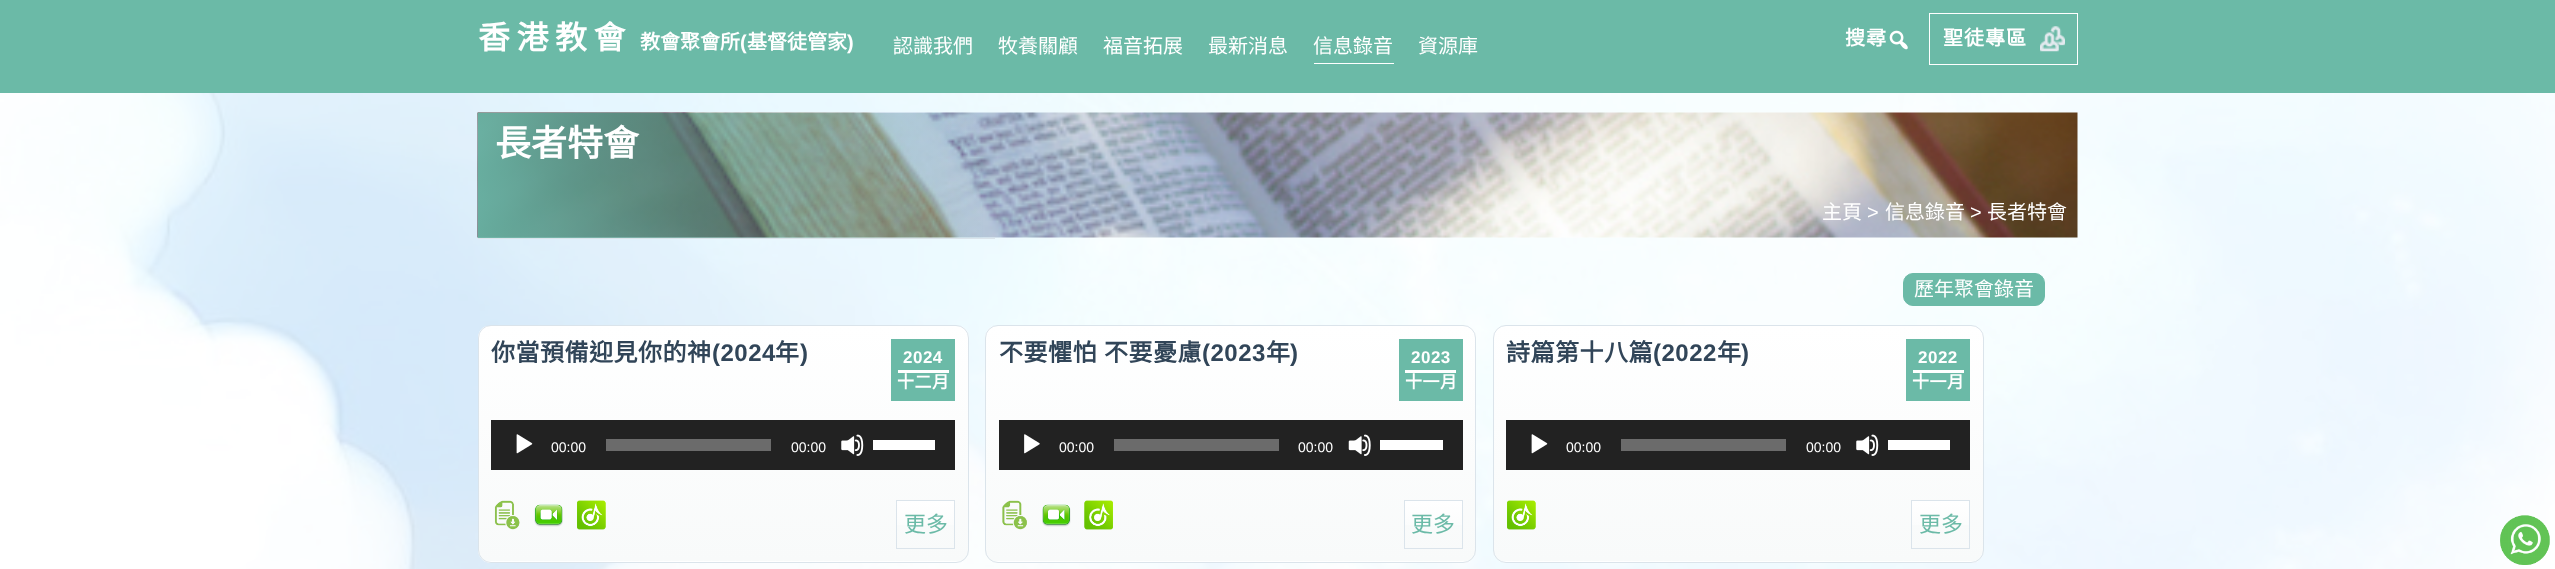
(async () => {
  const canvas = document.querySelector("canvas");
  canvas.width = 2555;
  canvas.height = 569;
  const ctx = canvas.getContext("2d");
  ctx.miterLimit = 4;
  ctx.fontKerning = "normal";
  async function loadImage(src) {
    const img = new Image();
    img.src = src;
    await img.decode();
    return img;
  }
  let gradient;

  ctx.fillStyle = "#ffffff";
  ctx.fillRect(0, 0, 2555, 569);
  for (const [x, y, w, h, color] of [
    [0, 0, 2555, 93, "#6bbaa7"],
    [1354, 39, 7, 1, "#ffffff"],
    [1314, 63, 80, 1, "#ffffff"],
  ]) {
    ctx.fillStyle = color;
    ctx.fillRect(x, y, w, h);
  }
  ctx.drawImage(await loadImage("img/1.png"), 1889, 30, 19, 20);
  ctx.strokeStyle = "#ffffff";
  ctx.strokeRect(1929.5, 13.5, 148, 51);
  ctx.drawImage(await loadImage("img/2.png"), 2040, 26, 25, 26);
  ctx.drawImage(await loadImage("img/3.png"), 0, 93, 2555, 476);
  ctx.drawImage(await loadImage("img/4.png"), 477, 112, 1601, 126);
  gradient = ctx.createLinearGradient(478, 175, 995, 175);
  gradient.addColorStop(0, "rgba(108, 186, 170, 0.9)");
  gradient.addColorStop(1, "rgba(108, 186, 170, 0)");
  ctx.fillStyle = gradient;
  ctx.fillRect(478, 113, 505, 125);
  ctx.fillStyle = "#dbe4eb";
  ctx.fillRect(478, 238, 517, 1);
  ctx.fillStyle = "#6bbaa7";
  ctx.beginPath();
  ctx.roundRect(1903.5, 273.5, 141, 32, 9.5);
  ctx.fill();
  ctx.strokeStyle = "#6bbaa7";
  ctx.stroke();
  ctx.save();
  ctx.beginPath();
  ctx.roundRect(478, 325, 491, 238, 13);
  ctx.clip();
  gradient = ctx.createLinearGradient(723, 326, 723, 561);
  gradient.addColorStop(0, "#ffffff");
  gradient.addColorStop(1, "#f8fafa");
  ctx.fillStyle = gradient;
  ctx.fillRect(478, 326, 491, 235);
  gradient = ctx.createLinearGradient(723, 561, 723, 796);
  gradient.addColorStop(0, "#ffffff");
  gradient.addColorStop(1, "#f8fafa");
  ctx.fillStyle = gradient;
  ctx.fillRect(478, 561, 491, 2);
  ctx.restore();
  ctx.beginPath();
  ctx.roundRect(478.5, 325.5, 490, 237, 12.5);
  ctx.strokeStyle = "#dbe4eb";
  ctx.stroke();
  for (const [x, y, w, h, color] of [
    [891, 339, 64, 62, "#6bbaa7"],
    [898, 370, 51, 3, "#ffffff"],
    [491, 420, 464, 50, "#222222"],
  ]) {
    ctx.fillStyle = color;
    ctx.fillRect(x, y, w, h);
  }
  ctx.drawImage(await loadImage("img/5.png"), 516, 434, 17, 20);
  ctx.fillStyle = "#6b6b6b";
  ctx.fillRect(606, 439, 165, 12);
  ctx.drawImage(await loadImage("img/6.png"), 841, 434, 23, 22);
  ctx.fillStyle = "#ffffff";
  ctx.fillRect(873, 440, 62, 10);
  ctx.drawImage(await loadImage("img/7.png"), 494, 500, 26, 30);
  ctx.drawImage(await loadImage("img/8.png"), 534, 504, 29, 23);
  ctx.drawImage(await loadImage("img/9.png"), 577, 500, 29, 30);
  gradient = ctx.createLinearGradient(926, 501, 926, 548);
  gradient.addColorStop(0, "#ffffff");
  gradient.addColorStop(1, "#f8fafa");
  ctx.fillStyle = gradient;
  ctx.fillRect(897, 501, 57, 24);
  ctx.strokeRect(896.5, 500.5, 58, 48);
  ctx.save();
  ctx.beginPath();
  ctx.roundRect(985, 325, 491, 238, 13);
  ctx.clip();
  gradient = ctx.createLinearGradient(1231, 326, 1231, 561);
  gradient.addColorStop(0, "#ffffff");
  gradient.addColorStop(1, "#f8fafa");
  ctx.fillStyle = gradient;
  ctx.fillRect(985, 326, 491, 235);
  gradient = ctx.createLinearGradient(1231, 561, 1231, 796);
  gradient.addColorStop(0, "#ffffff");
  gradient.addColorStop(1, "#f8fafa");
  ctx.fillStyle = gradient;
  ctx.fillRect(985, 561, 491, 2);
  ctx.restore();
  ctx.beginPath();
  ctx.roundRect(985.5, 325.5, 490, 237, 12.5);
  ctx.stroke();
  for (const [x, y, w, h, color] of [
    [1399, 339, 64, 62, "#6bbaa7"],
    [1405, 370, 51, 3, "#ffffff"],
    [999, 420, 464, 50, "#222222"],
  ]) {
    ctx.fillStyle = color;
    ctx.fillRect(x, y, w, h);
  }
  ctx.drawImage(await loadImage("img/10.png"), 1024, 434, 16, 20);
  ctx.fillStyle = "#6b6b6b";
  ctx.fillRect(1114, 439, 165, 12);
  ctx.drawImage(await loadImage("img/11.png"), 1348, 434, 23, 22);
  ctx.fillStyle = "#ffffff";
  ctx.fillRect(1380, 440, 63, 10);
  ctx.drawImage(await loadImage("img/12.png"), 1002, 500, 25, 30);
  ctx.drawImage(await loadImage("img/13.png"), 1042, 504, 29, 23);
  ctx.drawImage(await loadImage("img/14.png"), 1084, 500, 29, 30);
  gradient = ctx.createLinearGradient(1433, 501, 1433, 548);
  gradient.addColorStop(0, "#ffffff");
  gradient.addColorStop(1, "#f8fafa");
  ctx.fillStyle = gradient;
  ctx.fillRect(1405, 501, 57, 24);
  ctx.strokeRect(1404.5, 500.5, 58, 48);
  ctx.save();
  ctx.beginPath();
  ctx.roundRect(1493, 325, 491, 238, 13);
  ctx.clip();
  gradient = ctx.createLinearGradient(1738, 326, 1738, 561);
  gradient.addColorStop(0, "#ffffff");
  gradient.addColorStop(1, "#f8fafa");
  ctx.fillStyle = gradient;
  ctx.fillRect(1493, 326, 491, 235);
  gradient = ctx.createLinearGradient(1738, 561, 1738, 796);
  gradient.addColorStop(0, "#ffffff");
  gradient.addColorStop(1, "#f8fafa");
  ctx.fillStyle = gradient;
  ctx.fillRect(1493, 561, 491, 2);
  ctx.restore();
  ctx.beginPath();
  ctx.roundRect(1493.5, 325.5, 490, 237, 12.5);
  ctx.stroke();
  for (const [x, y, w, h, color] of [
    [1906, 339, 64, 62, "#6bbaa7"],
    [1913, 370, 51, 3, "#ffffff"],
    [1506, 420, 464, 50, "#222222"],
  ]) {
    ctx.fillStyle = color;
    ctx.fillRect(x, y, w, h);
  }
  ctx.drawImage(await loadImage("img/5.png"), 1531, 434, 17, 20);
  ctx.fillStyle = "#6b6b6b";
  ctx.fillRect(1621, 439, 165, 12);
  ctx.drawImage(await loadImage("img/6.png"), 1856, 434, 23, 22);
  ctx.fillStyle = "#ffffff";
  ctx.fillRect(1888, 440, 62, 10);
  ctx.drawImage(await loadImage("img/9.png"), 1507, 500, 29, 30);
  gradient = ctx.createLinearGradient(1941, 501, 1941, 548);
  gradient.addColorStop(0, "#ffffff");
  gradient.addColorStop(1, "#f8fafa");
  ctx.fillStyle = gradient;
  ctx.fillRect(1912, 501, 57, 24);
  ctx.strokeRect(1911.5, 500.5, 58, 48);
  ctx.drawImage(await loadImage("img/15.png"), 2500, 515, 50, 50);
  ctx.letterSpacing = "6.5px";
  ctx.font = "bold 32px Noto Sans CJK HK";
  ctx.fillStyle = "#ffffff";
  ctx.fillText("香港教會", 478, 49);
  ctx.letterSpacing = "0px";
  ctx.font = "bold 20px Noto Sans CJK HK";
  ctx.fillText("教會聚會所", 640, 49);
  ctx.font = "bold 20px Liberation Sans";
  ctx.fillText("(", 740, 49);
  ctx.font = "bold 20px Noto Sans CJK HK";
  ctx.fillText("基督徒管家", 747, 49);
  ctx.font = "bold 20px Liberation Sans";
  ctx.fillText(")", 847, 49);
  ctx.font = "20px Noto Sans CJK HK";
  for (const [text, x, y] of [
    ["認識我們", 893, 53],
    ["牧養關顧", 998, 53],
    ["福音拓展", 1103, 53],
    ["最新消息", 1208, 53],
    ["信息錄音", 1313, 53],
    ["資源庫", 1418, 53],
  ]) {
    ctx.fillText(text, x, y);
  }
  ctx.letterSpacing = "1px";
  ctx.font = "bold 20px Noto Sans CJK HK";
  ctx.fillText("搜尋", 1845, 45);
  ctx.fillText("聖徒專區", 1943, 45);
  ctx.letterSpacing = "0px";
  ctx.font = "bold 36px Noto Sans CJK HK";
  ctx.fillText("長者特會", 495, 156);
  ctx.font = "20px Noto Sans CJK HK";
  ctx.fillText("主頁", 1822, 219);
  ctx.font = "20px Liberation Sans";
  ctx.fillText(">", 1867, 219);
  ctx.font = "20px Noto Sans CJK HK";
  ctx.fillText("信息錄音", 1885, 219);
  ctx.font = "20px Liberation Sans";
  ctx.fillText(">", 1970, 219);
  ctx.font = "20px Noto Sans CJK HK";
  ctx.fillText("長者特會", 1987, 219);
  ctx.fillText("歷年聚會錄音", 1914, 296);
  ctx.letterSpacing = "0.5px";
  ctx.font = "bold 24px Noto Sans CJK HK";
  ctx.fillStyle = "#314558";
  ctx.fillText("你當預備迎見你的神", 491, 361);
  ctx.font = "bold 24px Liberation Sans";
  ctx.fillText("(2024", 712, 361);
  ctx.font = "bold 24px Noto Sans CJK HK";
  ctx.fillText("年", 775, 361);
  ctx.font = "bold 24px Liberation Sans";
  ctx.fillText(")", 800, 361);
  ctx.font = "bold 17px Liberation Sans";
  ctx.fillStyle = "#ffffff";
  ctx.fillText("2024", 903, 363);
  ctx.font = "bold 17px Noto Sans CJK HK";
  ctx.fillText("十二月", 897, 388);
  ctx.letterSpacing = "0px";
  ctx.font = "14px Liberation Sans";
  ctx.fillText("00:00", 551, 452);
  ctx.fillText("00:00", 791, 452);
  ctx.font = "22px Noto Sans CJK HK";
  ctx.fillStyle = "#6bbaa7";
  ctx.fillText("更多", 904, 532);
  ctx.letterSpacing = "0.5px";
  ctx.wordSpacing = "1px";
  ctx.font = "bold 24px Noto Sans CJK HK";
  ctx.fillStyle = "#314558";
  ctx.fillText("不要懼怕 不要憂慮", 999, 361);
  ctx.wordSpacing = "0px";
  ctx.font = "bold 24px Liberation Sans";
  ctx.fillText("(2023", 1202, 361);
  ctx.font = "bold 24px Noto Sans CJK HK";
  ctx.fillText("年", 1266, 361);
  ctx.font = "bold 24px Liberation Sans";
  ctx.fillText(")", 1290, 361);
  ctx.font = "bold 17px Liberation Sans";
  ctx.fillStyle = "#ffffff";
  ctx.fillText("2023", 1411, 363);
  ctx.font = "bold 17px Noto Sans CJK HK";
  ctx.fillText("十一月", 1405, 388);
  ctx.letterSpacing = "0px";
  ctx.font = "14px Liberation Sans";
  ctx.fillText("00:00", 1059, 452);
  ctx.fillText("00:00", 1298, 452);
  ctx.font = "22px Noto Sans CJK HK";
  ctx.fillStyle = "#6bbaa7";
  ctx.fillText("更多", 1411, 532);
  ctx.letterSpacing = "0.5px";
  ctx.font = "bold 24px Noto Sans CJK HK";
  ctx.fillStyle = "#314558";
  ctx.fillText("詩篇第十八篇", 1506, 361);
  ctx.font = "bold 24px Liberation Sans";
  ctx.fillText("(2022", 1653, 361);
  ctx.font = "bold 24px Noto Sans CJK HK";
  ctx.fillText("年", 1717, 361);
  ctx.font = "bold 24px Liberation Sans";
  ctx.fillText(")", 1741, 361);
  ctx.font = "bold 17px Liberation Sans";
  ctx.fillStyle = "#ffffff";
  ctx.fillText("2022", 1918, 363);
  ctx.font = "bold 17px Noto Sans CJK HK";
  ctx.fillText("十一月", 1912, 388);
  ctx.letterSpacing = "0px";
  ctx.font = "14px Liberation Sans";
  ctx.fillText("00:00", 1566, 452);
  ctx.fillText("00:00", 1806, 452);
  ctx.font = "22px Noto Sans CJK HK";
  ctx.fillStyle = "#6bbaa7";
  ctx.fillText("更多", 1919, 532);
})();
